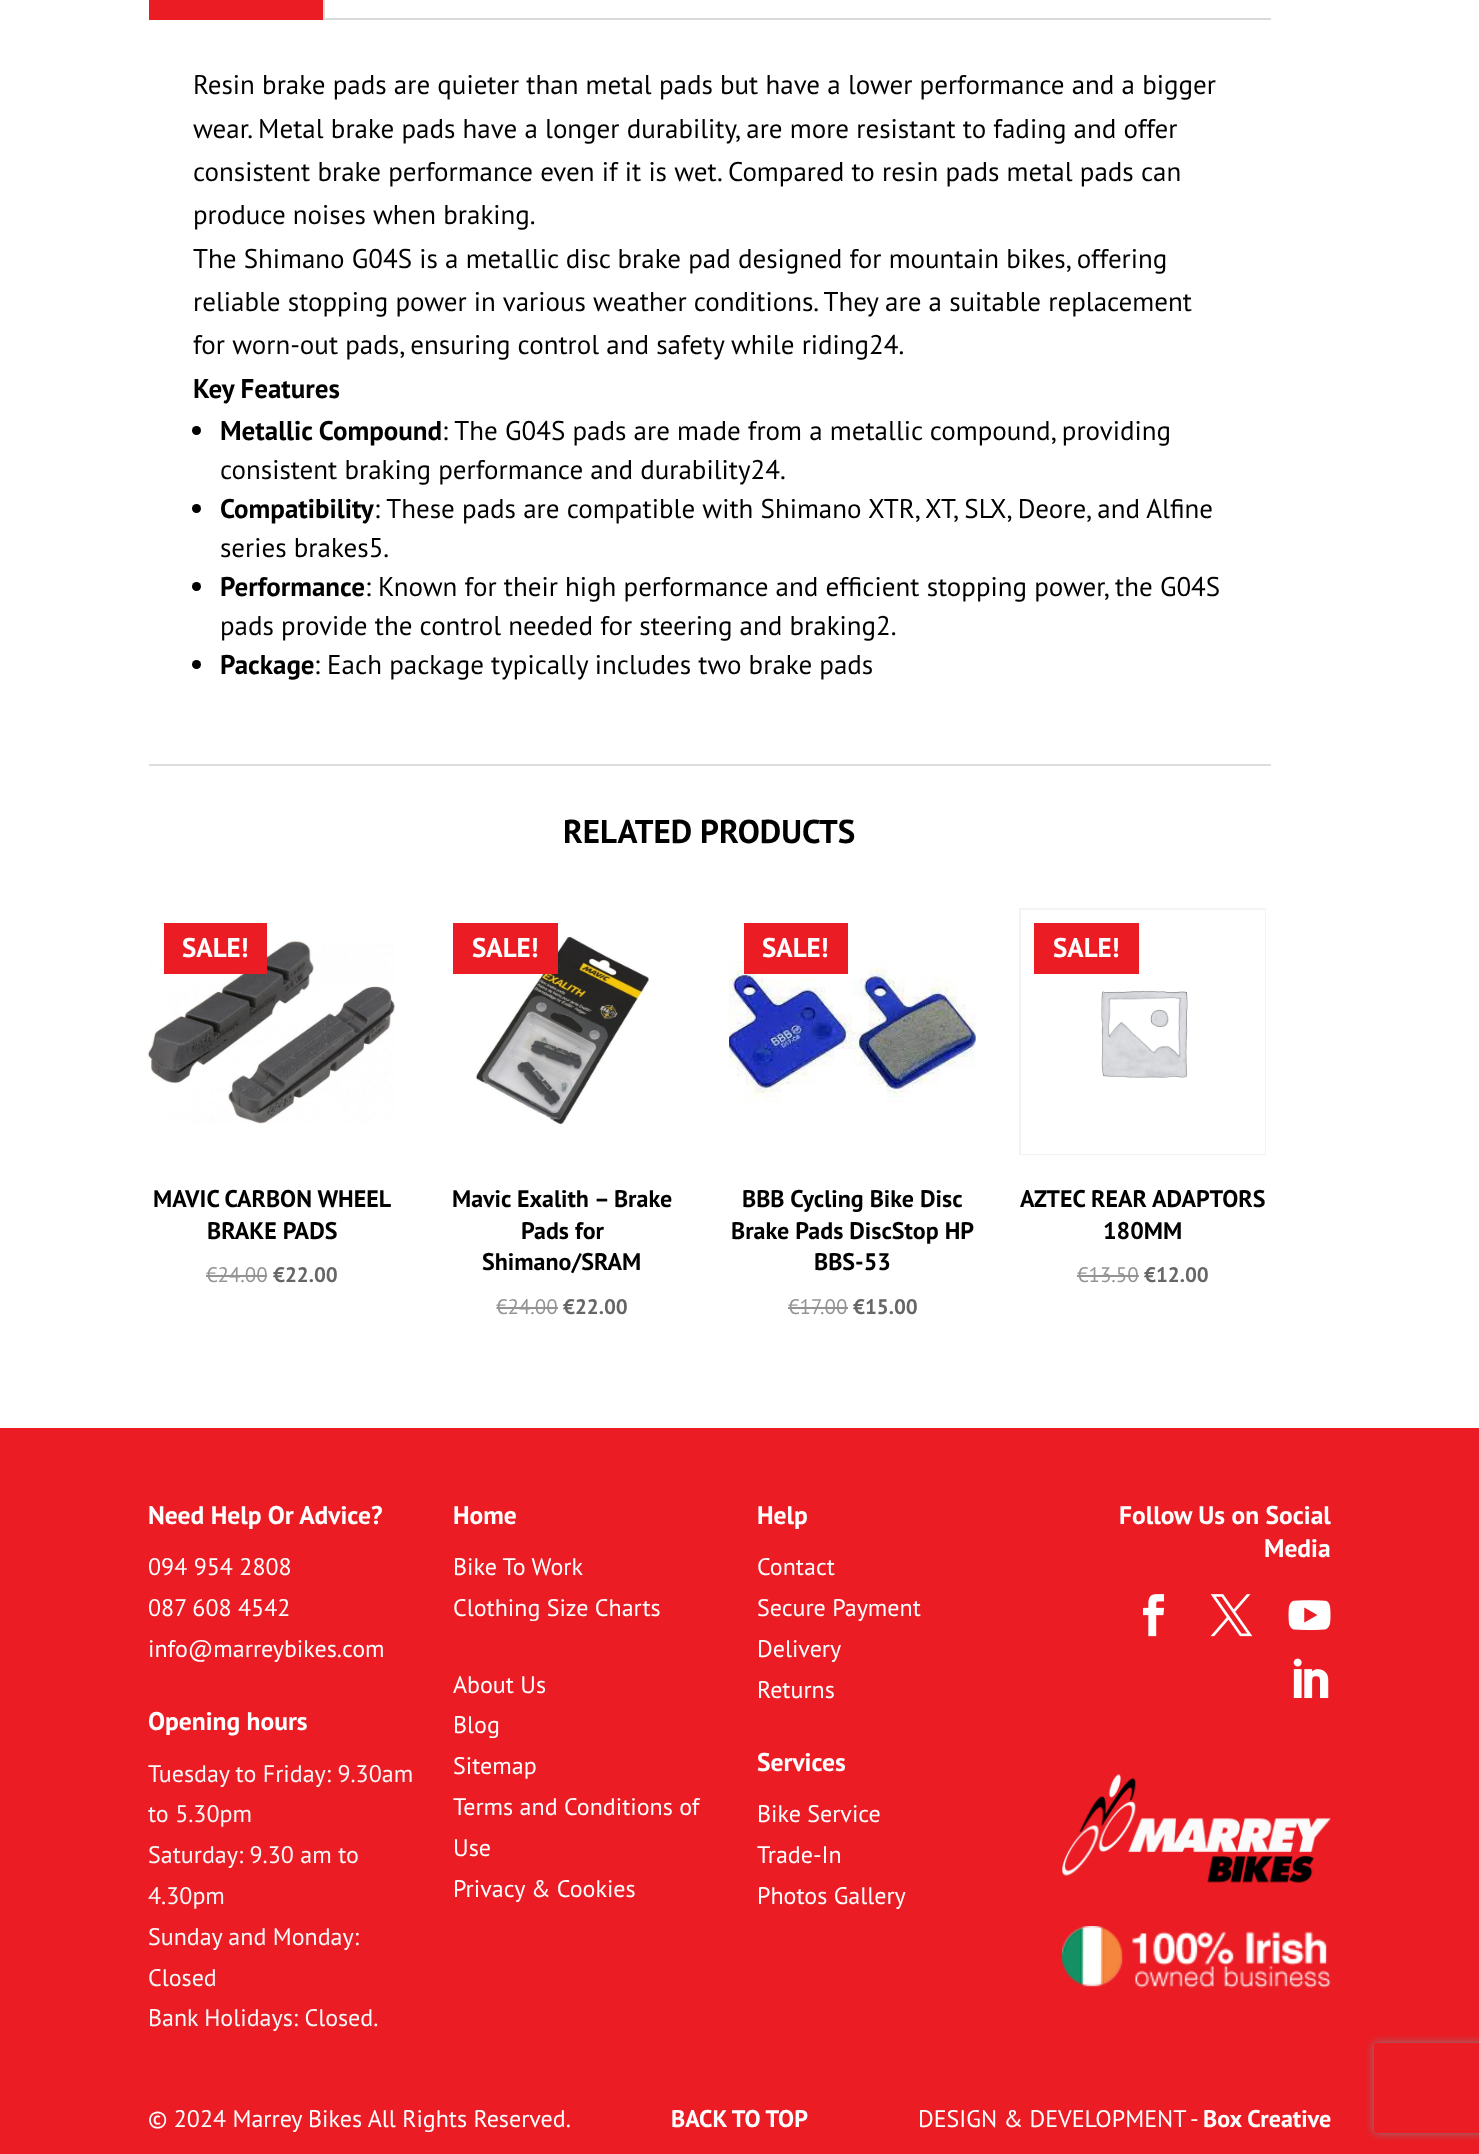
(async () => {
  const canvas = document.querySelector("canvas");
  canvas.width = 1479;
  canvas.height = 2154;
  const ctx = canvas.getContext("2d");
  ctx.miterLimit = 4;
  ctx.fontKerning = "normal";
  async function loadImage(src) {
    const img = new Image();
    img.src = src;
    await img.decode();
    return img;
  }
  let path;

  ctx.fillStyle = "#ffffff";
  ctx.fillRect(0, 0, 1479, 2154);
  for (const [x, y, w, h, color] of [
    [149, 764, 1122, 2, "#dddddd"],
    [149, 0, 174, 20, "#ec1c24"],
    [323, 0, 2, 20, "#d9d9d9"],
    [325, 18, 946, 2, "#d9d9d9"],
  ]) {
    ctx.fillStyle = color;
    ctx.fillRect(x, y, w, h);
  }
  ctx.fillStyle = "#000000";
  ctx.beginPath();
  ctx.arc(196.5, 430.5, 4.5, 0, Math.PI * 2);
  ctx.fill();
  ctx.beginPath();
  ctx.arc(196.5, 508.5, 4.5, 0, Math.PI * 2);
  ctx.fill();
  ctx.beginPath();
  ctx.arc(196.5, 586.5, 4.5, 0, Math.PI * 2);
  ctx.fill();
  ctx.beginPath();
  ctx.arc(196.5, 664.5, 4.5, 0, Math.PI * 2);
  ctx.fill();
  ctx.drawImage(await loadImage("img/1.png"), 148, 939, 248, 185);
  ctx.fillStyle = "#ec1c24";
  ctx.fillRect(164, 923, 103, 51);
  ctx.fillStyle = "#949494";
  ctx.fillRect(206, 1275, 61, 2);
  ctx.drawImage(await loadImage("img/2.png"), 475, 936, 174, 189);
  ctx.fillStyle = "#ec1c24";
  ctx.fillRect(453, 923, 105, 51);
  ctx.fillStyle = "#949494";
  ctx.fillRect(497, 1307, 61, 2);
  ctx.drawImage(await loadImage("img/3.png"), 729, 961, 247, 141);
  ctx.fillStyle = "#ec1c24";
  ctx.fillRect(744, 923, 104, 51);
  ctx.fillStyle = "#949494";
  ctx.fillRect(788, 1307, 60, 2);
  ctx.strokeStyle = "#f2f2f2";
  ctx.lineWidth = 2;
  ctx.strokeRect(1020, 909, 245, 245);
  ctx.drawImage(await loadImage("img/4.png"), 1020, 909, 245, 245);
  for (const [x, y, w, h, color] of [
    [1034, 923, 105, 51, "#ec1c24"],
    [1077, 1275, 62, 2, "#949494"],
    [0, 1428, 1479, 726, "#ec1c24"],
  ]) {
    ctx.fillStyle = color;
    ctx.fillRect(x, y, w, h);
  }
  ctx.drawImage(await loadImage("img/5.png"), 1143, 1594, 22, 43);
  ctx.drawImage(await loadImage("img/6.png"), 1210, 1594, 43, 43);
  ctx.drawImage(await loadImage("img/7.png"), 1288, 1600, 43, 31);
  ctx.drawImage(await loadImage("img/8.png"), 1293, 1658, 36, 40);
  ctx.drawImage(await loadImage("img/9.png"), 1062, 1774, 269, 109);
  ctx.drawImage(await loadImage("img/10.png"), 1062, 1926, 269, 62);
  ctx.save();
  path = new Path2D("M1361 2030H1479V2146H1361ZM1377 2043H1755C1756.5 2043 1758 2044.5 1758 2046V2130C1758 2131.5 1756.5 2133 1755 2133H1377C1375.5 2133 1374 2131.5 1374 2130V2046C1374 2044.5 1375.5 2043 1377 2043Z");
  ctx.clip(path, "evenodd");
  ctx.fillStyle = "#808080";
  ctx.filter = "blur(4px)";
  ctx.beginPath();
  ctx.roundRect(1374, 2043, 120, 90, 3);
  ctx.fill();
  ctx.filter = "none";
  ctx.restore();
  ctx.font = "27px PT Sans";
  ctx.fillStyle = "#000000";
  for (const [text, x, y] of [
    ["Resin brake pads are quieter than metal pads but have a lower performance and a bigger", 193, 94],
    ["wear. Metal brake pads have a longer durability, are more resistant to fading and offer", 193, 138],
    ["consistent brake performance even if it is wet. Compared to resin pads metal pads can", 193, 181],
    ["produce noises when braking.", 193, 224],
    ["The Shimano G04S is a metallic disc brake pad designed for mountain bikes, offering", 193, 268],
    ["reliable stopping power in various weather conditions. They are a suitable replacement", 193, 311],
    ["for worn-out pads, ensuring control and safety while riding24.", 193, 354],
  ]) {
    ctx.fillText(text, x, y);
  }
  ctx.font = "bold 27px PT Sans";
  ctx.fillText("Key Features", 193, 398);
  ctx.fillText("Metallic Compound", 220, 440);
  ctx.font = "27px PT Sans";
  ctx.fillText(": The G04S pads are made from a metallic compound, providing", 442, 440);
  ctx.fillText("consistent braking performance and durability24.", 220, 479);
  ctx.font = "bold 27px PT Sans";
  ctx.fillText("Compatibility", 220, 518);
  ctx.font = "27px PT Sans";
  ctx.fillText(": These pads are compatible with Shimano XTR, XT, SLX, Deore, and Alfine", 374, 518);
  ctx.fillText("series brakes5.", 220, 557);
  ctx.font = "bold 27px PT Sans";
  ctx.fillText("Performance", 220, 596);
  ctx.font = "27px PT Sans";
  ctx.fillText(": Known for their high performance and efficient stopping power, the G04S", 365, 596);
  ctx.fillText("pads provide the control needed for steering and braking2.", 220, 635);
  ctx.font = "bold 27px PT Sans";
  ctx.fillText("Package", 220, 674);
  ctx.font = "27px PT Sans";
  ctx.fillText(": Each package typically includes two brake pads", 314, 674);
  ctx.font = "bold 33px PT Sans";
  ctx.fillText("RELATED PRODUCTS", 563, 843);
  ctx.font = "bold 27px PT Sans";
  ctx.fillStyle = "#ffffff";
  ctx.fillText("SALE!", 182, 957);
  ctx.font = "bold 24px PT Sans";
  ctx.fillStyle = "#000000";
  ctx.fillText("MAVIC CARBON WHEEL", 153, 1207);
  ctx.fillText("BRAKE PADS", 207, 1239);
  ctx.font = "21px PT Sans";
  ctx.fillStyle = "#949494";
  ctx.fillText("€24.00", 206, 1282);
  ctx.font = "bold 21px PT Sans";
  ctx.fillStyle = "#666666";
  ctx.fillText("€22.00", 273, 1282);
  ctx.font = "bold 27px PT Sans";
  ctx.fillStyle = "#ffffff";
  ctx.fillText("SALE!", 472, 957);
  ctx.font = "bold 24px PT Sans";
  ctx.fillStyle = "#000000";
  for (const [text, x, y] of [
    ["Mavic Exalith – Brake", 452, 1207],
    ["Pads for", 521, 1239],
    ["Shimano/SRAM", 482, 1270],
  ]) {
    ctx.fillText(text, x, y);
  }
  ctx.font = "21px PT Sans";
  ctx.fillStyle = "#949494";
  ctx.fillText("€24.00", 496, 1314);
  ctx.font = "bold 21px PT Sans";
  ctx.fillStyle = "#666666";
  ctx.fillText("€22.00", 563, 1314);
  ctx.font = "bold 27px PT Sans";
  ctx.fillStyle = "#ffffff";
  ctx.fillText("SALE!", 762, 957);
  ctx.font = "bold 24px PT Sans";
  ctx.fillStyle = "#000000";
  for (const [text, x, y] of [
    ["BBB Cycling Bike Disc", 742, 1207],
    ["Brake Pads DiscStop HP", 731, 1239],
    ["BBS-53", 814, 1270],
  ]) {
    ctx.fillText(text, x, y);
  }
  ctx.font = "21px PT Sans";
  ctx.fillStyle = "#949494";
  ctx.fillText("€17.00", 788, 1314);
  ctx.font = "bold 21px PT Sans";
  ctx.fillStyle = "#666666";
  ctx.fillText("€15.00", 853, 1314);
  ctx.font = "bold 27px PT Sans";
  ctx.fillStyle = "#ffffff";
  ctx.fillText("SALE!", 1053, 957);
  ctx.font = "bold 24px PT Sans";
  ctx.fillStyle = "#000000";
  ctx.fillText("AZTEC REAR ADAPTORS", 1020, 1207);
  ctx.fillText("180MM", 1103, 1239);
  ctx.font = "21px PT Sans";
  ctx.fillStyle = "#949494";
  ctx.fillText("€13.50", 1077, 1282);
  ctx.font = "bold 21px PT Sans";
  ctx.fillStyle = "#666666";
  ctx.fillText("€12.00", 1144, 1282);
  ctx.font = "bold 25.5px PT Sans";
  ctx.fillStyle = "#ffffff";
  ctx.fillText("Need Help Or Advice?", 148, 1524);
  ctx.font = "24px PT Sans";
  for (const [text, x, y] of [
    ["094 954 2808", 148, 1575],
    ["087 608 4542", 148, 1616],
    ["info@marreybikes.com", 148, 1657],
  ]) {
    ctx.fillText(text, x, y);
  }
  ctx.font = "bold 25.5px PT Sans";
  ctx.fillText("Opening hours", 148, 1730);
  ctx.font = "24px PT Sans";
  ctx.fillStyle = "#f8f8f8";
  for (const [text, x, y] of [
    ["Tuesday to Friday: 9.30am", 148, 1782],
    ["to 5.30pm", 148, 1822],
    ["Saturday: 9.30 am to", 148, 1863],
    ["4.30pm", 148, 1904],
    ["Sunday and Monday:", 148, 1945],
    ["Closed", 148, 1986],
    ["Bank Holidays: Closed.", 148, 2026],
  ]) {
    ctx.fillText(text, x, y);
  }
  ctx.font = "bold 25.5px PT Sans";
  ctx.fillStyle = "#ffffff";
  ctx.fillText("Home", 453, 1524);
  ctx.font = "24px PT Sans";
  for (const [text, x, y] of [
    ["Bike To Work", 453, 1575],
    ["Clothing Size Charts", 453, 1616],
    ["About Us", 453, 1693],
    ["Blog", 453, 1733],
    ["Sitemap", 453, 1774],
    ["Terms and Conditions of", 453, 1815],
    ["Use", 453, 1856],
    ["Privacy & Cookies", 453, 1897],
  ]) {
    ctx.fillText(text, x, y);
  }
  ctx.font = "bold 25.5px PT Sans";
  ctx.fillText("Help", 757, 1524);
  ctx.font = "24px PT Sans";
  for (const [text, x, y] of [
    ["Contact", 757, 1575],
    ["Secure Payment", 757, 1616],
    ["Delivery", 757, 1657],
    ["Returns", 757, 1698],
  ]) {
    ctx.fillText(text, x, y);
  }
  ctx.font = "bold 25.5px PT Sans";
  ctx.fillText("Services", 757, 1771);
  ctx.font = "24px PT Sans";
  for (const [text, x, y] of [
    ["Bike Service", 757, 1822],
    ["Trade-In", 757, 1863],
    ["Photos Gallery", 757, 1904],
  ]) {
    ctx.fillText(text, x, y);
  }
  ctx.font = "bold 25.5px PT Sans";
  ctx.fillText("Follow Us on Social", 1119, 1524);
  ctx.fillText("Media", 1264, 1557);
  ctx.font = "24px PT Sans";
  ctx.fillText("© 2024 Marrey Bikes All Rights Reserved.", 148, 2127);
  ctx.font = "bold 24px PT Sans";
  ctx.fillText("BACK TO TOP", 671, 2127);
  ctx.font = "24px PT Sans";
  ctx.fillText("DESIGN & DEVELOPMENT -", 918, 2127);
  ctx.font = "bold 24px PT Sans";
  ctx.fillText("Box Creative", 1203, 2127);
})();
